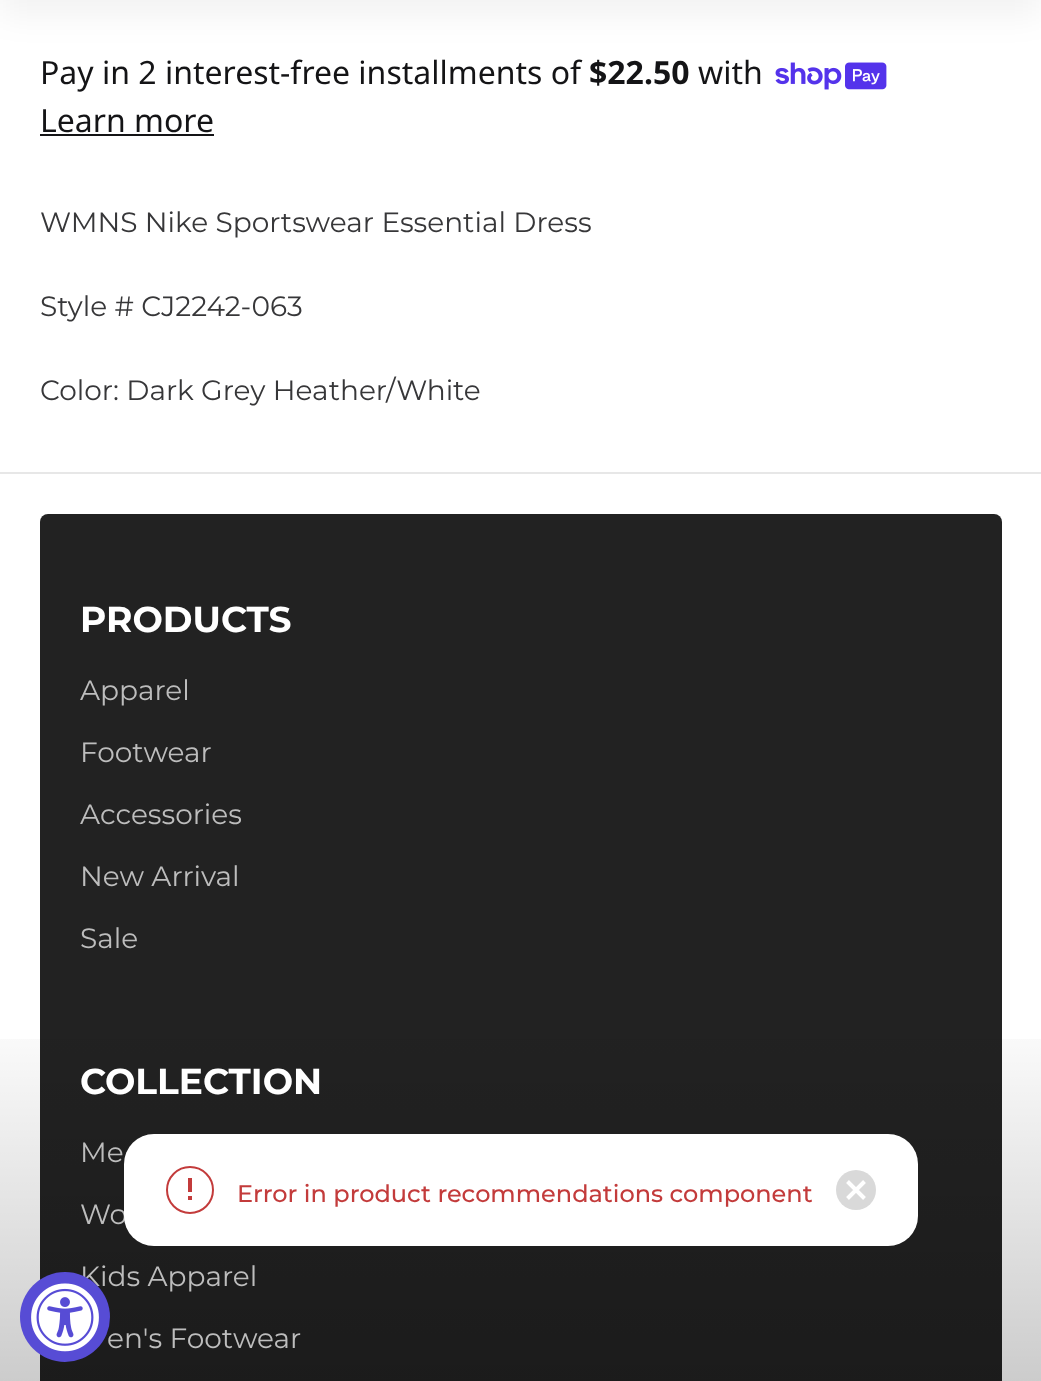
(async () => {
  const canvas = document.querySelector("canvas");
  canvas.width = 1041;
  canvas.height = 1381;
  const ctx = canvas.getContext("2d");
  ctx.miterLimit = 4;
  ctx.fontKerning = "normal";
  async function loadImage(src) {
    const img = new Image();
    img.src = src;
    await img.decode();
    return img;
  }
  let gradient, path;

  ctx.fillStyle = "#ffffff";
  ctx.fillRect(0, 0, 1041, 1381);
  ctx.drawImage(await loadImage("img/1.png"), 775, 62, 112, 28);
  ctx.fillStyle = "rgba(0, 0, 0, 0.05)";
  ctx.filter = "blur(16px)";
  ctx.beginPath();
  ctx.rect(0, -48, 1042, 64);
  ctx.fill();
  ctx.filter = "none";
  ctx.fillStyle = "#141416";
  ctx.fillRect(40, 134, 174, 2);
  ctx.fillStyle = "#e7e7e7";
  ctx.fillRect(0, 472, 1041, 2);
  ctx.fillStyle = "#222222";
  ctx.beginPath();
  ctx.roundRect(40, 514, 962, 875, 8);
  ctx.fill();
  gradient = ctx.createLinearGradient(521, 998, 521, 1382);
  gradient.addColorStop(0, "rgba(0, 0, 0, 0)");
  gradient.addColorStop(1, "rgba(0, 0, 0, 0.2)");
  ctx.fillStyle = gradient;
  ctx.fillRect(0, 1039, 1041, 342);
  ctx.font = "32px Noto Sans";
  ctx.fillStyle = "#141416";
  ctx.fillText("Pay in 2 interest-free installments of", 40, 84);
  ctx.font = "bold 32px Noto Sans";
  ctx.fillText("$22.50", 589, 84);
  ctx.font = "32px Noto Sans";
  ctx.fillText("with", 698, 84);
  ctx.fillText("Learn more", 40, 132);
  ctx.font = "28px Montserrat";
  ctx.fillStyle = "#373739";
  for (const [text, x, y] of [
    ["WMNS Nike Sportswear Essential Dress", 40, 232],
    ["Style # CJ2242-063", 40, 316],
    ["Color: Dark Grey Heather/White", 40, 400],
  ]) {
    ctx.fillText(text, x, y);
  }
  ctx.font = "bold 36px Montserrat";
  ctx.fillStyle = "#ffffff";
  ctx.fillText("PRODUCTS", 80, 632);
  ctx.font = "28px Montserrat";
  ctx.fillStyle = "#bdbdbd";
  for (const [text, x, y] of [
    ["Apparel", 80, 700],
    ["Footwear", 80, 762],
    ["Accessories", 80, 824],
    ["New Arrival", 80, 886],
    ["Sale", 80, 948],
  ]) {
    ctx.fillText(text, x, y);
  }
  ctx.font = "bold 36px Montserrat";
  ctx.fillStyle = "#ffffff";
  ctx.fillText("COLLECTION", 80, 1094);
  ctx.font = "28px Montserrat";
  ctx.fillStyle = "#bdbdbd";
  for (const [text, x, y] of [
    ["Me", 80, 1162],
    ["Wo", 80, 1224],
    ["Kids Apparel", 80, 1286],
    ["en's Footwear", 107, 1348],
  ]) {
    ctx.fillText(text, x, y);
  }
  ctx.fillStyle = "#ffffff";
  ctx.beginPath();
  ctx.roundRect(124, 1134, 794, 112, 30);
  ctx.fill();
  ctx.fillStyle = "#c33b3b";
  ctx.fillRect(188, 1178, 4, 14);
  path = new Path2D("M190 1196V1200");
  ctx.strokeStyle = "#c33b3b";
  ctx.lineWidth = 4;
  ctx.stroke(path);
  ctx.beginPath();
  ctx.arc(190, 1190, 23, 0, Math.PI * 2);
  ctx.lineWidth = 2;
  ctx.stroke();
  ctx.font = "500 24px Montserrat";
  ctx.fillText("Error in product recommendations component", 237, 1202);
  ctx.fillStyle = "#d9d9d9";
  ctx.beginPath();
  ctx.arc(856, 1190, 20, 0, Math.PI * 2);
  ctx.fill();
  path = new Path2D("M864.5 1181.5L847.5 1198.5M864.5 1198.5L847.5 1181.5");
  ctx.strokeStyle = "#ffffff";
  ctx.lineWidth = 4;
  ctx.stroke(path);
  ctx.fillStyle = "#574cd5";
  ctx.beginPath();
  ctx.arc(65, 1317, 45, 0, Math.PI * 2);
  ctx.fill();
  ctx.drawImage(await loadImage("img/2.png"), 31, 1283, 68, 69);
})();
